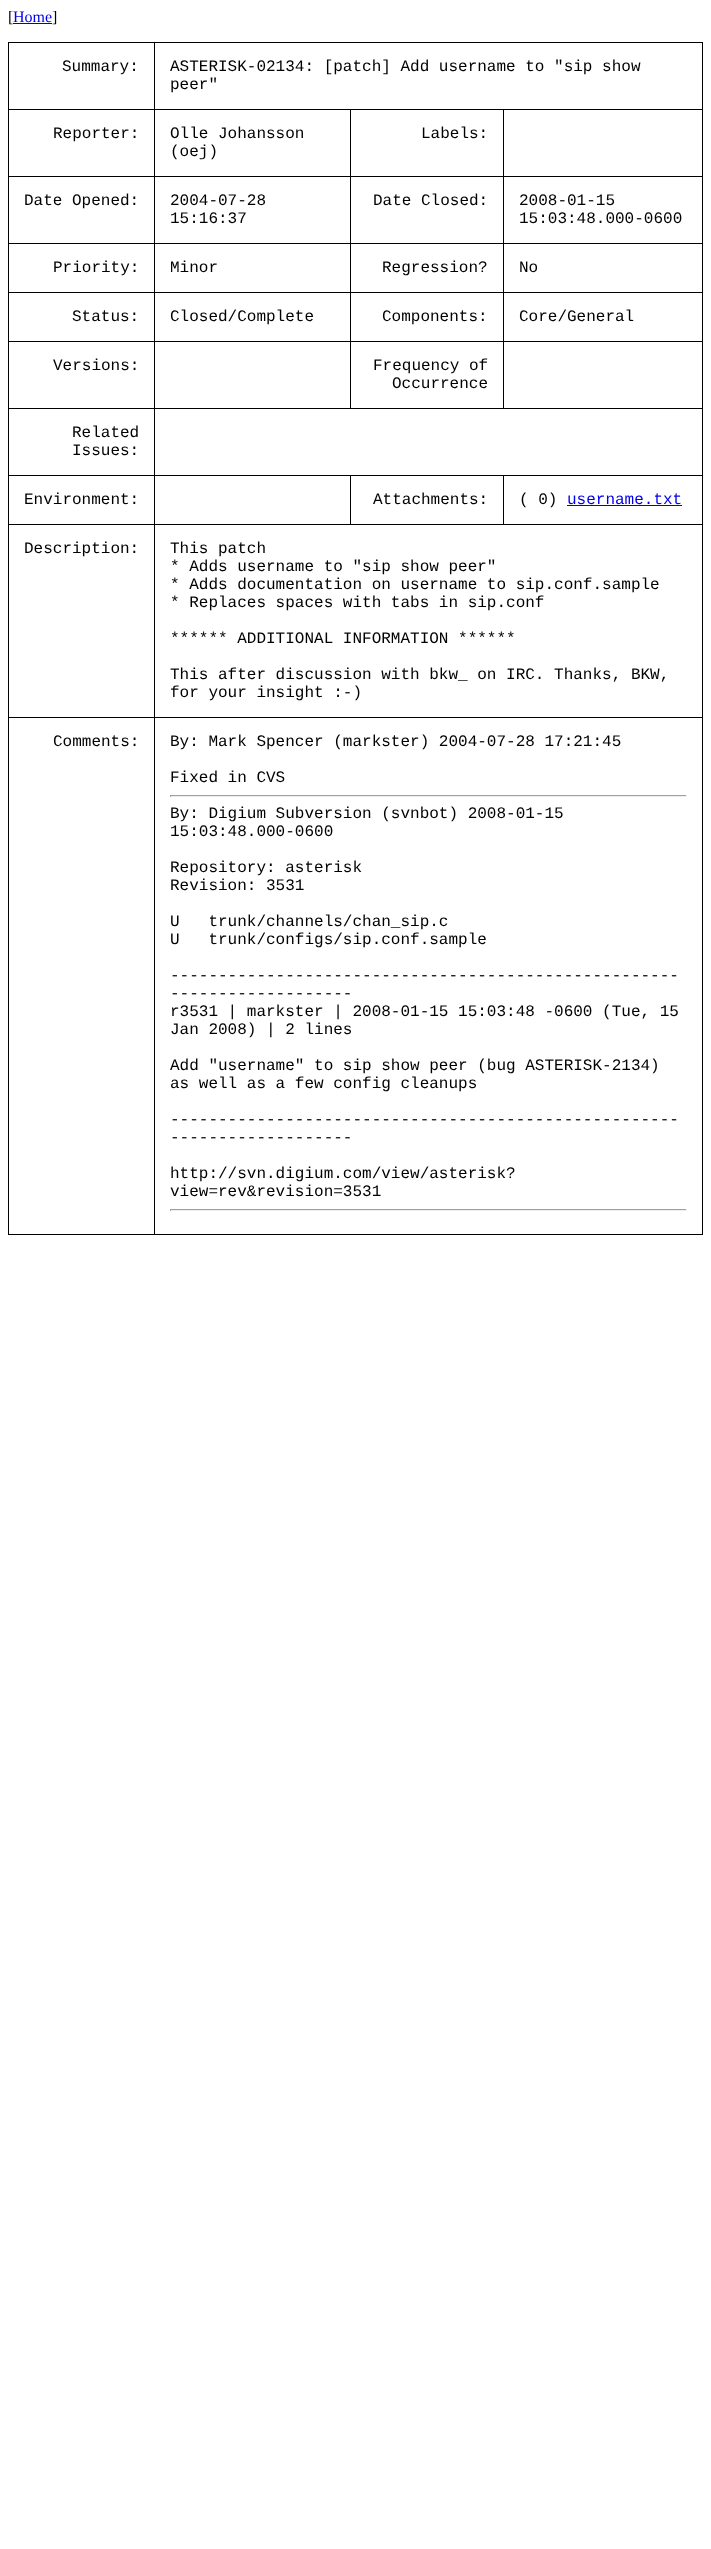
(async () => {
  const canvas = document.querySelector("canvas");
  canvas.width = 711;
  canvas.height = 2549;
  const ctx = canvas.getContext("2d");
  ctx.miterLimit = 4;
  ctx.fontKerning = "normal";

  ctx.fillStyle = "#ffffff";
  ctx.fillRect(0, 0, 711, 2549);
  for (const [x, y, w, h, color] of [
    [13, 23, 39, 1, "#0000ee"],
    [154, 42, 549, 1, "#000000"],
    [503, 109, 200, 1, "#000000"],
    [503, 176, 200, 1, "#000000"],
    [503, 243, 200, 1, "#000000"],
    [503, 292, 200, 1, "#000000"],
    [503, 341, 200, 1, "#000000"],
    [154, 408, 549, 1, "#000000"],
    [503, 341, 1, 68, "#000000"],
    [350, 341, 154, 1, "#000000"],
    [503, 292, 1, 50, "#000000"],
    [350, 292, 154, 1, "#000000"],
    [503, 243, 1, 50, "#000000"],
    [350, 243, 154, 1, "#000000"],
    [503, 176, 1, 68, "#000000"],
    [350, 176, 154, 1, "#000000"],
    [503, 109, 1, 68, "#000000"],
    [350, 109, 154, 1, "#000000"],
    [350, 341, 1, 68, "#000000"],
    [154, 341, 197, 1, "#000000"],
    [350, 292, 1, 50, "#000000"],
    [154, 292, 197, 1, "#000000"],
    [350, 243, 1, 50, "#000000"],
    [154, 243, 197, 1, "#000000"],
    [350, 176, 1, 68, "#000000"],
    [154, 176, 197, 1, "#000000"],
    [350, 109, 1, 68, "#000000"],
    [154, 109, 197, 1, "#000000"],
    [503, 475, 200, 1, "#000000"],
    [154, 524, 549, 1, "#000000"],
    [503, 475, 1, 50, "#000000"],
    [350, 475, 154, 1, "#000000"],
    [350, 475, 1, 50, "#000000"],
    [154, 475, 197, 1, "#000000"],
    [154, 717, 549, 1, "#000000"],
    [702, 717, 1, 518, "#000000"],
    [154, 1234, 549, 1, "#000000"],
    [154, 717, 1, 518, "#000000"],
    [8, 717, 147, 1, "#000000"],
    [154, 524, 1, 194, "#000000"],
    [8, 524, 147, 1, "#000000"],
    [154, 475, 1, 50, "#000000"],
    [8, 475, 147, 1, "#000000"],
    [154, 408, 1, 68, "#000000"],
    [8, 408, 147, 1, "#000000"],
    [154, 341, 1, 68, "#000000"],
    [8, 341, 147, 1, "#000000"],
    [154, 292, 1, 50, "#000000"],
    [8, 292, 147, 1, "#000000"],
    [154, 243, 1, 50, "#000000"],
    [8, 243, 147, 1, "#000000"],
    [154, 176, 1, 68, "#000000"],
    [8, 176, 147, 1, "#000000"],
    [154, 109, 1, 68, "#000000"],
    [8, 109, 147, 1, "#000000"],
    [154, 42, 1, 68, "#000000"],
    [8, 42, 147, 1, "#000000"],
    [8, 1234, 147, 1, "#000000"],
    [8, 717, 1, 518, "#000000"],
    [8, 524, 1, 194, "#000000"],
    [8, 475, 1, 50, "#000000"],
    [8, 408, 1, 68, "#000000"],
    [8, 341, 1, 68, "#000000"],
    [8, 292, 1, 50, "#000000"],
    [8, 243, 1, 50, "#000000"],
    [8, 176, 1, 68, "#000000"],
    [8, 109, 1, 68, "#000000"],
    [8, 42, 1, 68, "#000000"],
    [702, 524, 1, 194, "#000000"],
    [702, 475, 1, 50, "#000000"],
    [702, 408, 1, 68, "#000000"],
    [702, 341, 1, 68, "#000000"],
    [702, 292, 1, 50, "#000000"],
    [702, 243, 1, 50, "#000000"],
    [702, 176, 1, 68, "#000000"],
    [702, 109, 1, 68, "#000000"],
    [702, 42, 1, 68, "#000000"],
    [567, 505, 115, 1, "#0000ee"],
    [170, 795, 517, 1, "#9f9f9f"],
    [686, 795, 1, 2, "#eeeeee"],
    [170, 796, 517, 1, "#eeeeee"],
    [170, 795, 1, 2, "#9f9f9f"],
    [170, 1209, 517, 1, "#9f9f9f"],
    [686, 1209, 1, 2, "#eeeeee"],
    [170, 1210, 517, 1, "#eeeeee"],
    [170, 1209, 1, 2, "#9f9f9f"],
  ]) {
    ctx.fillStyle = color;
    ctx.fillRect(x, y, w, h);
  }
  ctx.font = "16px Liberation Serif";
  ctx.fillStyle = "#000000";
  ctx.fillText("[", 8, 22);
  ctx.fillStyle = "#0000ee";
  ctx.fillText("Home", 13, 22);
  ctx.fillStyle = "#000000";
  ctx.fillText("]", 52, 22);
  ctx.font = "16px Liberation Mono";
  for (const [text, x, y] of [
    ["Summary:", 62, 71],
    ["ASTERISK-02134: [patch] Add username to \"sip show", 170, 71],
    ["peer\"", 170, 89],
    ["Reporter:", 53, 138],
    ["Olle Johansson", 170, 138],
    ["(oej)", 170, 156],
    ["Labels:", 421, 138],
    ["Date Opened:", 24, 205],
    ["2004-07-28", 170, 205],
    ["15:16:37", 170, 223],
    ["Date Closed:", 373, 205],
    ["2008-01-15", 519, 205],
    ["15:03:48.000-0600", 519, 223],
    ["Priority:", 53, 272],
    ["Minor", 170, 272],
    ["Regression?", 382, 272],
    ["No", 519, 272],
    ["Status:", 72, 321],
    ["Closed/Complete", 170, 321],
    ["Components:", 382, 321],
    ["Core/General", 519, 321],
    ["Versions:", 53, 370],
    ["Frequency of", 373, 370],
    ["Occurrence", 392, 388],
    ["Related", 72, 437],
    ["Issues:", 72, 455],
    ["Environment:", 24, 504],
    ["Attachments:", 373, 504],
    ["( 0)", 519, 504],
  ]) {
    ctx.fillText(text, x, y);
  }
  ctx.fillStyle = "#0000ee";
  ctx.fillText("username.txt", 567, 504);
  ctx.fillStyle = "#000000";
  for (const [text, x, y] of [
    ["Description:", 24, 553],
    ["This patch", 170, 553],
    ["* Adds username to \"sip show peer\"", 170, 571],
    ["* Adds documentation on username to sip.conf.sample", 170, 589],
    ["* Replaces spaces with tabs in sip.conf", 170, 607],
    ["****** ADDITIONAL INFORMATION ******", 170, 643],
    ["This after discussion with bkw_ on IRC. Thanks, BKW,", 170, 679],
    ["for your insight :-)", 170, 697],
    ["Comments:", 53, 746],
    ["By: Mark Spencer (markster) 2004-07-28 17:21:45", 170, 746],
    ["Fixed in CVS", 170, 782],
    ["By: Digium Subversion (svnbot) 2008-01-15", 170, 818],
    ["15:03:48.000-0600", 170, 836],
    ["Repository: asterisk", 170, 872],
    ["Revision: 3531", 170, 890],
    ["U   trunk/channels/chan_sip.c", 170, 926],
    ["U   trunk/configs/sip.conf.sample", 170, 944],
    ["-----------------------------------------------------", 170, 980],
    ["-------------------", 170, 998],
    ["r3531 | markster | 2008-01-15 15:03:48 -0600 (Tue, 15", 170, 1016],
    ["Jan 2008) | 2 lines", 170, 1034],
    ["Add \"username\" to sip show peer (bug ASTERISK-2134)", 170, 1070],
    ["as well as a few config cleanups", 170, 1088],
    ["-----------------------------------------------------", 170, 1124],
    ["-------------------", 170, 1142],
    ["http://svn.digium.com/view/asterisk?", 170, 1178],
    ["view=rev&revision=3531", 170, 1196],
  ]) {
    ctx.fillText(text, x, y);
  }
})();
